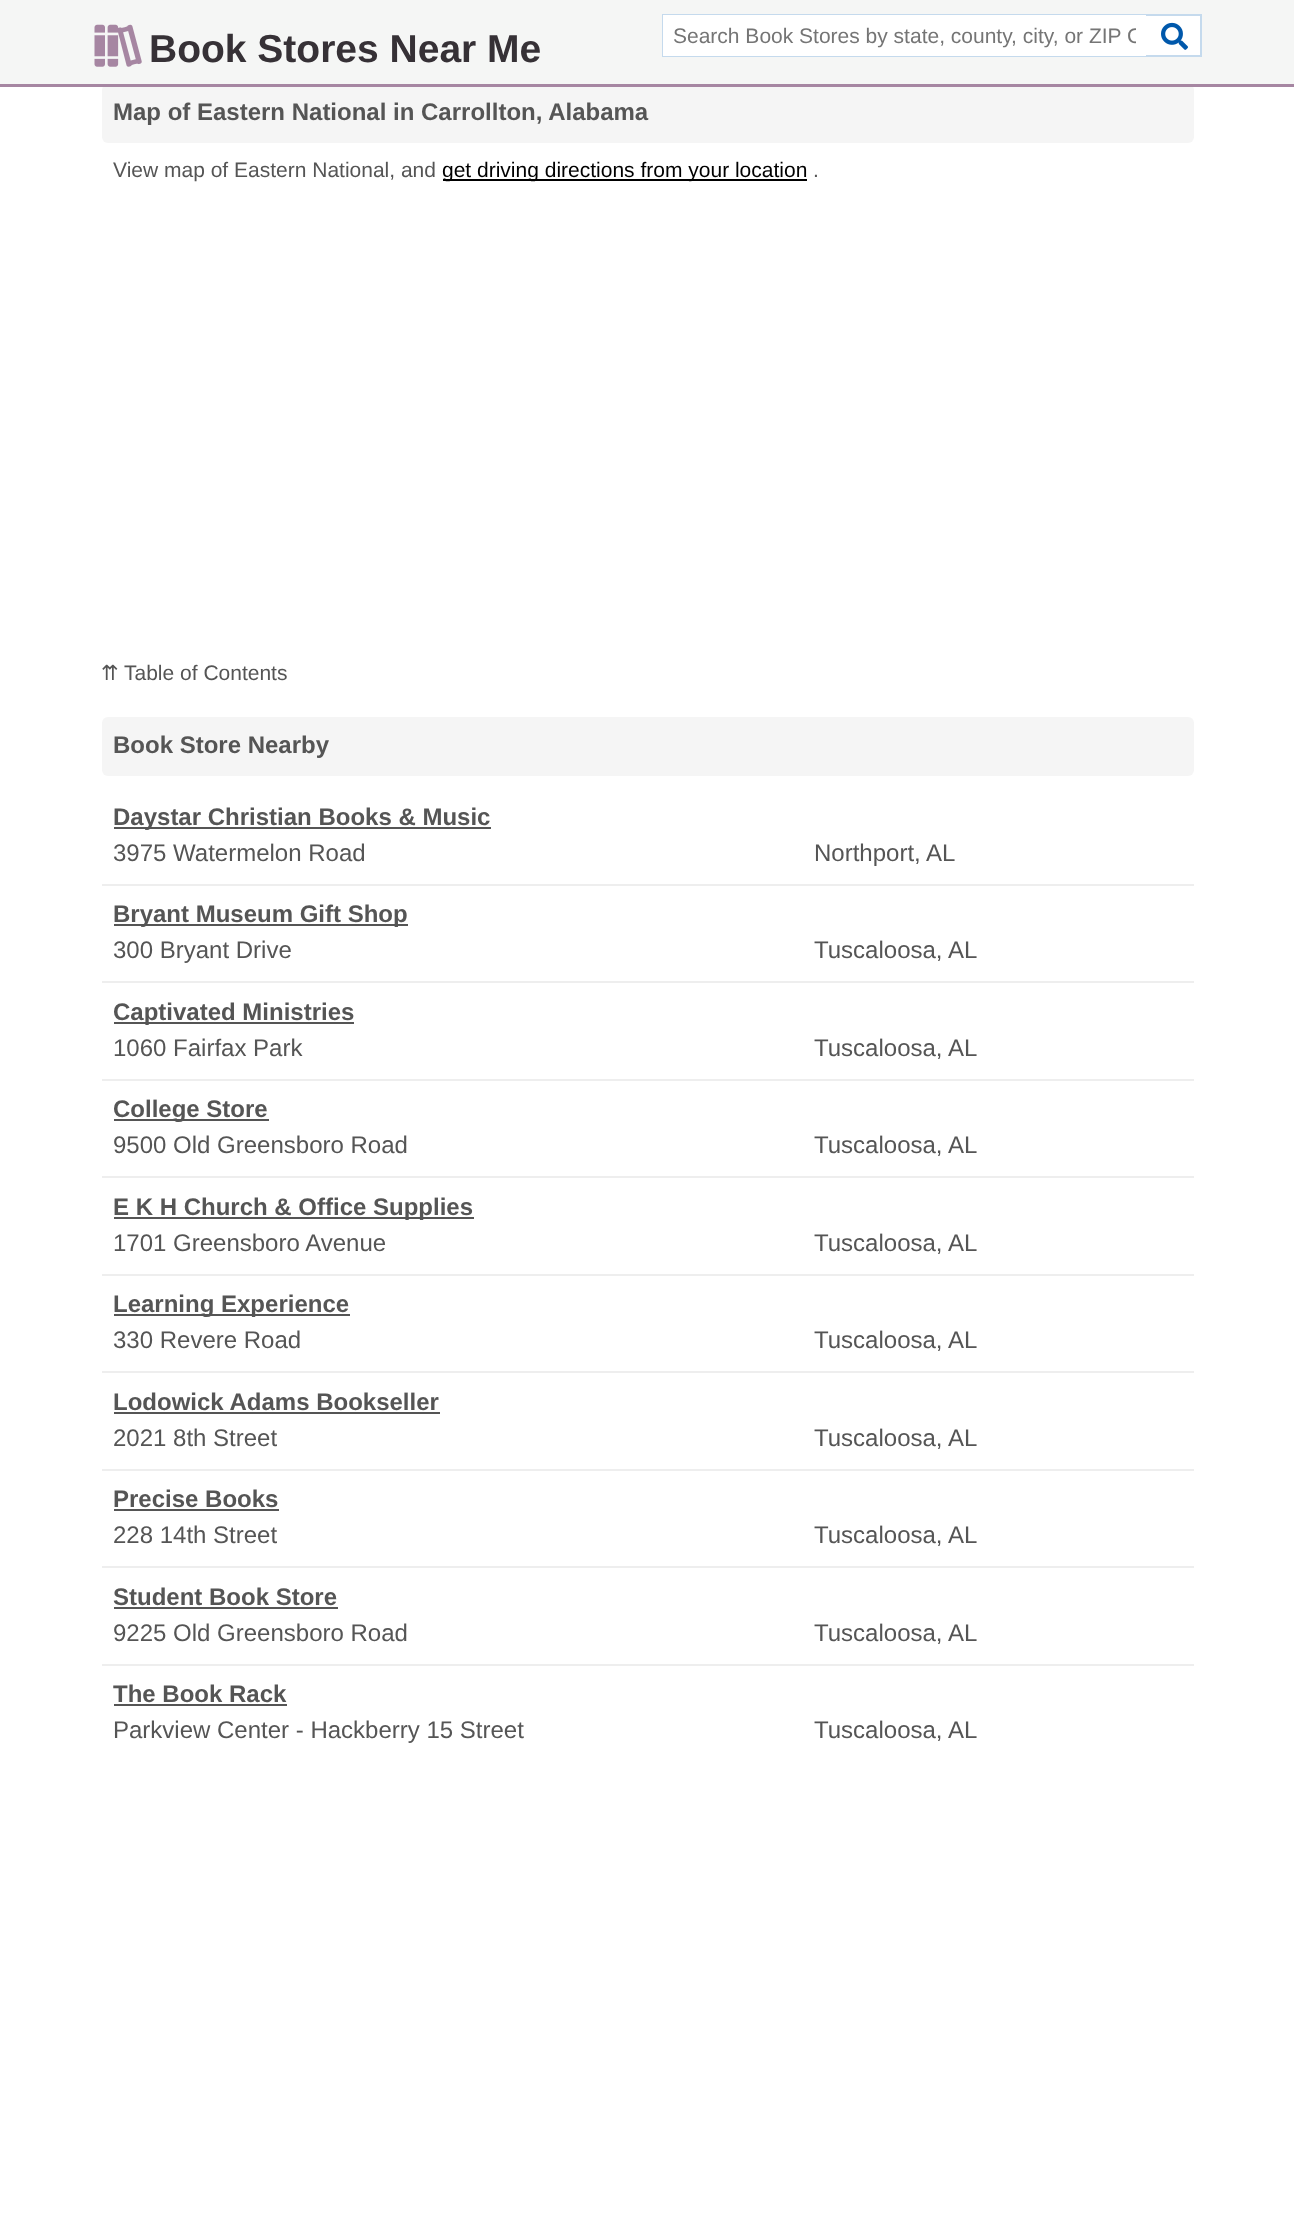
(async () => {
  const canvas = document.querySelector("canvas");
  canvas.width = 1294;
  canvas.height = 2236;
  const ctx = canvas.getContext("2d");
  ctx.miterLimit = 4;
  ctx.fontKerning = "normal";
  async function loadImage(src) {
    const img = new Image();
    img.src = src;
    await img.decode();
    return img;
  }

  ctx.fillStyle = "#ffffff";
  ctx.fillRect(0, 0, 1294, 2236);
  ctx.fillStyle = "#f5f6f5";
  ctx.fillRect(0, 0, 1294, 84);
  ctx.fillStyle = "#f5f5f5";
  ctx.beginPath();
  ctx.roundRect(102, 84, 1092, 59, 6);
  ctx.fill();
  ctx.fillStyle = "#a686a2";
  ctx.fillRect(0, 84, 1294, 3);
  ctx.drawImage(await loadImage("img/1.png"), 94, 24, 48, 43);
  ctx.fillStyle = "#ffffff";
  ctx.fillRect(1146, 16, 54, 39);
  ctx.strokeStyle = "#c5daed";
  ctx.lineWidth = 2;
  ctx.strokeRect(663, 15, 538, 41);
  ctx.fillRect(663, 15, 483, 41);
  ctx.drawImage(await loadImage("img/2.png"), 1161, 22, 27, 28);
  ctx.fillStyle = "#000000";
  ctx.fillRect(443, 179, 364, 2);
  ctx.fillStyle = "#f5f5f5";
  ctx.beginPath();
  ctx.roundRect(102, 717, 1092, 59, 6);
  ctx.fill();
  for (const [x, y, w, h, color] of [
    [114, 827, 377, 2, "#555555"],
    [102, 884, 1092, 2, "#eeeeee"],
    [114, 924, 294, 2, "#555555"],
    [102, 981, 1092, 2, "#eeeeee"],
    [114, 1022, 240, 2, "#555555"],
    [102, 1079, 1092, 2, "#eeeeee"],
    [114, 1119, 155, 2, "#555555"],
    [102, 1176, 1092, 2, "#eeeeee"],
    [114, 1217, 360, 2, "#555555"],
    [102, 1274, 1092, 2, "#eeeeee"],
    [114, 1314, 236, 2, "#555555"],
    [102, 1371, 1092, 2, "#eeeeee"],
    [114, 1412, 326, 2, "#555555"],
    [102, 1469, 1092, 2, "#eeeeee"],
    [114, 1509, 165, 2, "#555555"],
    [102, 1566, 1092, 2, "#eeeeee"],
    [114, 1607, 224, 2, "#555555"],
    [102, 1664, 1092, 2, "#eeeeee"],
    [114, 1704, 173, 2, "#555555"],
  ]) {
    ctx.fillStyle = color;
    ctx.fillRect(x, y, w, h);
  }
  ctx.font = "bold 39px Liberation Sans";
  ctx.fillStyle = "#363136";
  ctx.fillText("Book Stores Near Me", 149, 62);
  ctx.save();
  ctx.beginPath();
  ctx.rect(674, 24, 462, 24);
  ctx.clip();
  ctx.font = "21px Liberation Sans";
  ctx.fillStyle = "#757575";
  ctx.fillText("Search Book Stores by state, county, city, or ZIP C", 673, 43);
  ctx.restore();
  ctx.font = "bold 24px Liberation Sans";
  ctx.fillStyle = "#555555";
  ctx.fillText("Map of Eastern National in Carrollton, Alabama", 113, 120);
  ctx.font = "21px Liberation Sans";
  ctx.fillText("View map of Eastern National, and", 113, 177);
  ctx.fillStyle = "#000000";
  ctx.fillText("get driving directions from your location", 442, 177);
  ctx.fillStyle = "#555555";
  ctx.fillText(".", 813, 177);
  ctx.font = "21px DejaVu Sans";
  ctx.fillText("⇈", 101, 680);
  ctx.font = "21px Liberation Sans";
  ctx.fillText("Table of Contents", 124, 680);
  ctx.font = "bold 24px Liberation Sans";
  ctx.fillText("Book Store Nearby", 113, 753);
  ctx.fillText("Daystar Christian Books & Music", 113, 825);
  ctx.font = "24px Liberation Sans";
  for (const [text, x, y] of [
    ["3975 Watermelon Road", 113, 861],
    ["Northport,", 814, 861],
    ["AL", 926, 861],
  ]) {
    ctx.fillText(text, x, y);
  }
  ctx.font = "bold 24px Liberation Sans";
  ctx.fillText("Bryant Museum Gift Shop", 113, 922);
  ctx.font = "24px Liberation Sans";
  for (const [text, x, y] of [
    ["300 Bryant Drive", 113, 958],
    ["Tuscaloosa,", 814, 958],
    ["AL", 948, 958],
  ]) {
    ctx.fillText(text, x, y);
  }
  ctx.font = "bold 24px Liberation Sans";
  ctx.fillText("Captivated Ministries", 113, 1020);
  ctx.font = "24px Liberation Sans";
  for (const [text, x, y] of [
    ["1060 Fairfax Park", 113, 1056],
    ["Tuscaloosa,", 814, 1056],
    ["AL", 948, 1056],
  ]) {
    ctx.fillText(text, x, y);
  }
  ctx.font = "bold 24px Liberation Sans";
  ctx.fillText("College Store", 113, 1117);
  ctx.font = "24px Liberation Sans";
  for (const [text, x, y] of [
    ["9500 Old Greensboro Road", 113, 1153],
    ["Tuscaloosa,", 814, 1153],
    ["AL", 948, 1153],
  ]) {
    ctx.fillText(text, x, y);
  }
  ctx.font = "bold 24px Liberation Sans";
  ctx.fillText("E K H Church & Office Supplies", 113, 1215);
  ctx.font = "24px Liberation Sans";
  for (const [text, x, y] of [
    ["1701 Greensboro Avenue", 113, 1251],
    ["Tuscaloosa,", 814, 1251],
    ["AL", 948, 1251],
  ]) {
    ctx.fillText(text, x, y);
  }
  ctx.font = "bold 24px Liberation Sans";
  ctx.fillText("Learning Experience", 113, 1312);
  ctx.font = "24px Liberation Sans";
  for (const [text, x, y] of [
    ["330 Revere Road", 113, 1348],
    ["Tuscaloosa,", 814, 1348],
    ["AL", 948, 1348],
  ]) {
    ctx.fillText(text, x, y);
  }
  ctx.font = "bold 24px Liberation Sans";
  ctx.fillText("Lodowick Adams Bookseller", 113, 1410);
  ctx.font = "24px Liberation Sans";
  for (const [text, x, y] of [
    ["2021 8th Street", 113, 1446],
    ["Tuscaloosa,", 814, 1446],
    ["AL", 948, 1446],
  ]) {
    ctx.fillText(text, x, y);
  }
  ctx.font = "bold 24px Liberation Sans";
  ctx.fillText("Precise Books", 113, 1507);
  ctx.font = "24px Liberation Sans";
  for (const [text, x, y] of [
    ["228 14th Street", 113, 1543],
    ["Tuscaloosa,", 814, 1543],
    ["AL", 948, 1543],
  ]) {
    ctx.fillText(text, x, y);
  }
  ctx.font = "bold 24px Liberation Sans";
  ctx.fillText("Student Book Store", 113, 1605);
  ctx.font = "24px Liberation Sans";
  for (const [text, x, y] of [
    ["9225 Old Greensboro Road", 113, 1641],
    ["Tuscaloosa,", 814, 1641],
    ["AL", 948, 1641],
  ]) {
    ctx.fillText(text, x, y);
  }
  ctx.font = "bold 24px Liberation Sans";
  ctx.fillText("The Book Rack", 113, 1702);
  ctx.font = "24px Liberation Sans";
  for (const [text, x, y] of [
    ["Parkview Center - Hackberry 15 Street", 113, 1738],
    ["Tuscaloosa,", 814, 1738],
    ["AL", 948, 1738],
  ]) {
    ctx.fillText(text, x, y);
  }
})();
